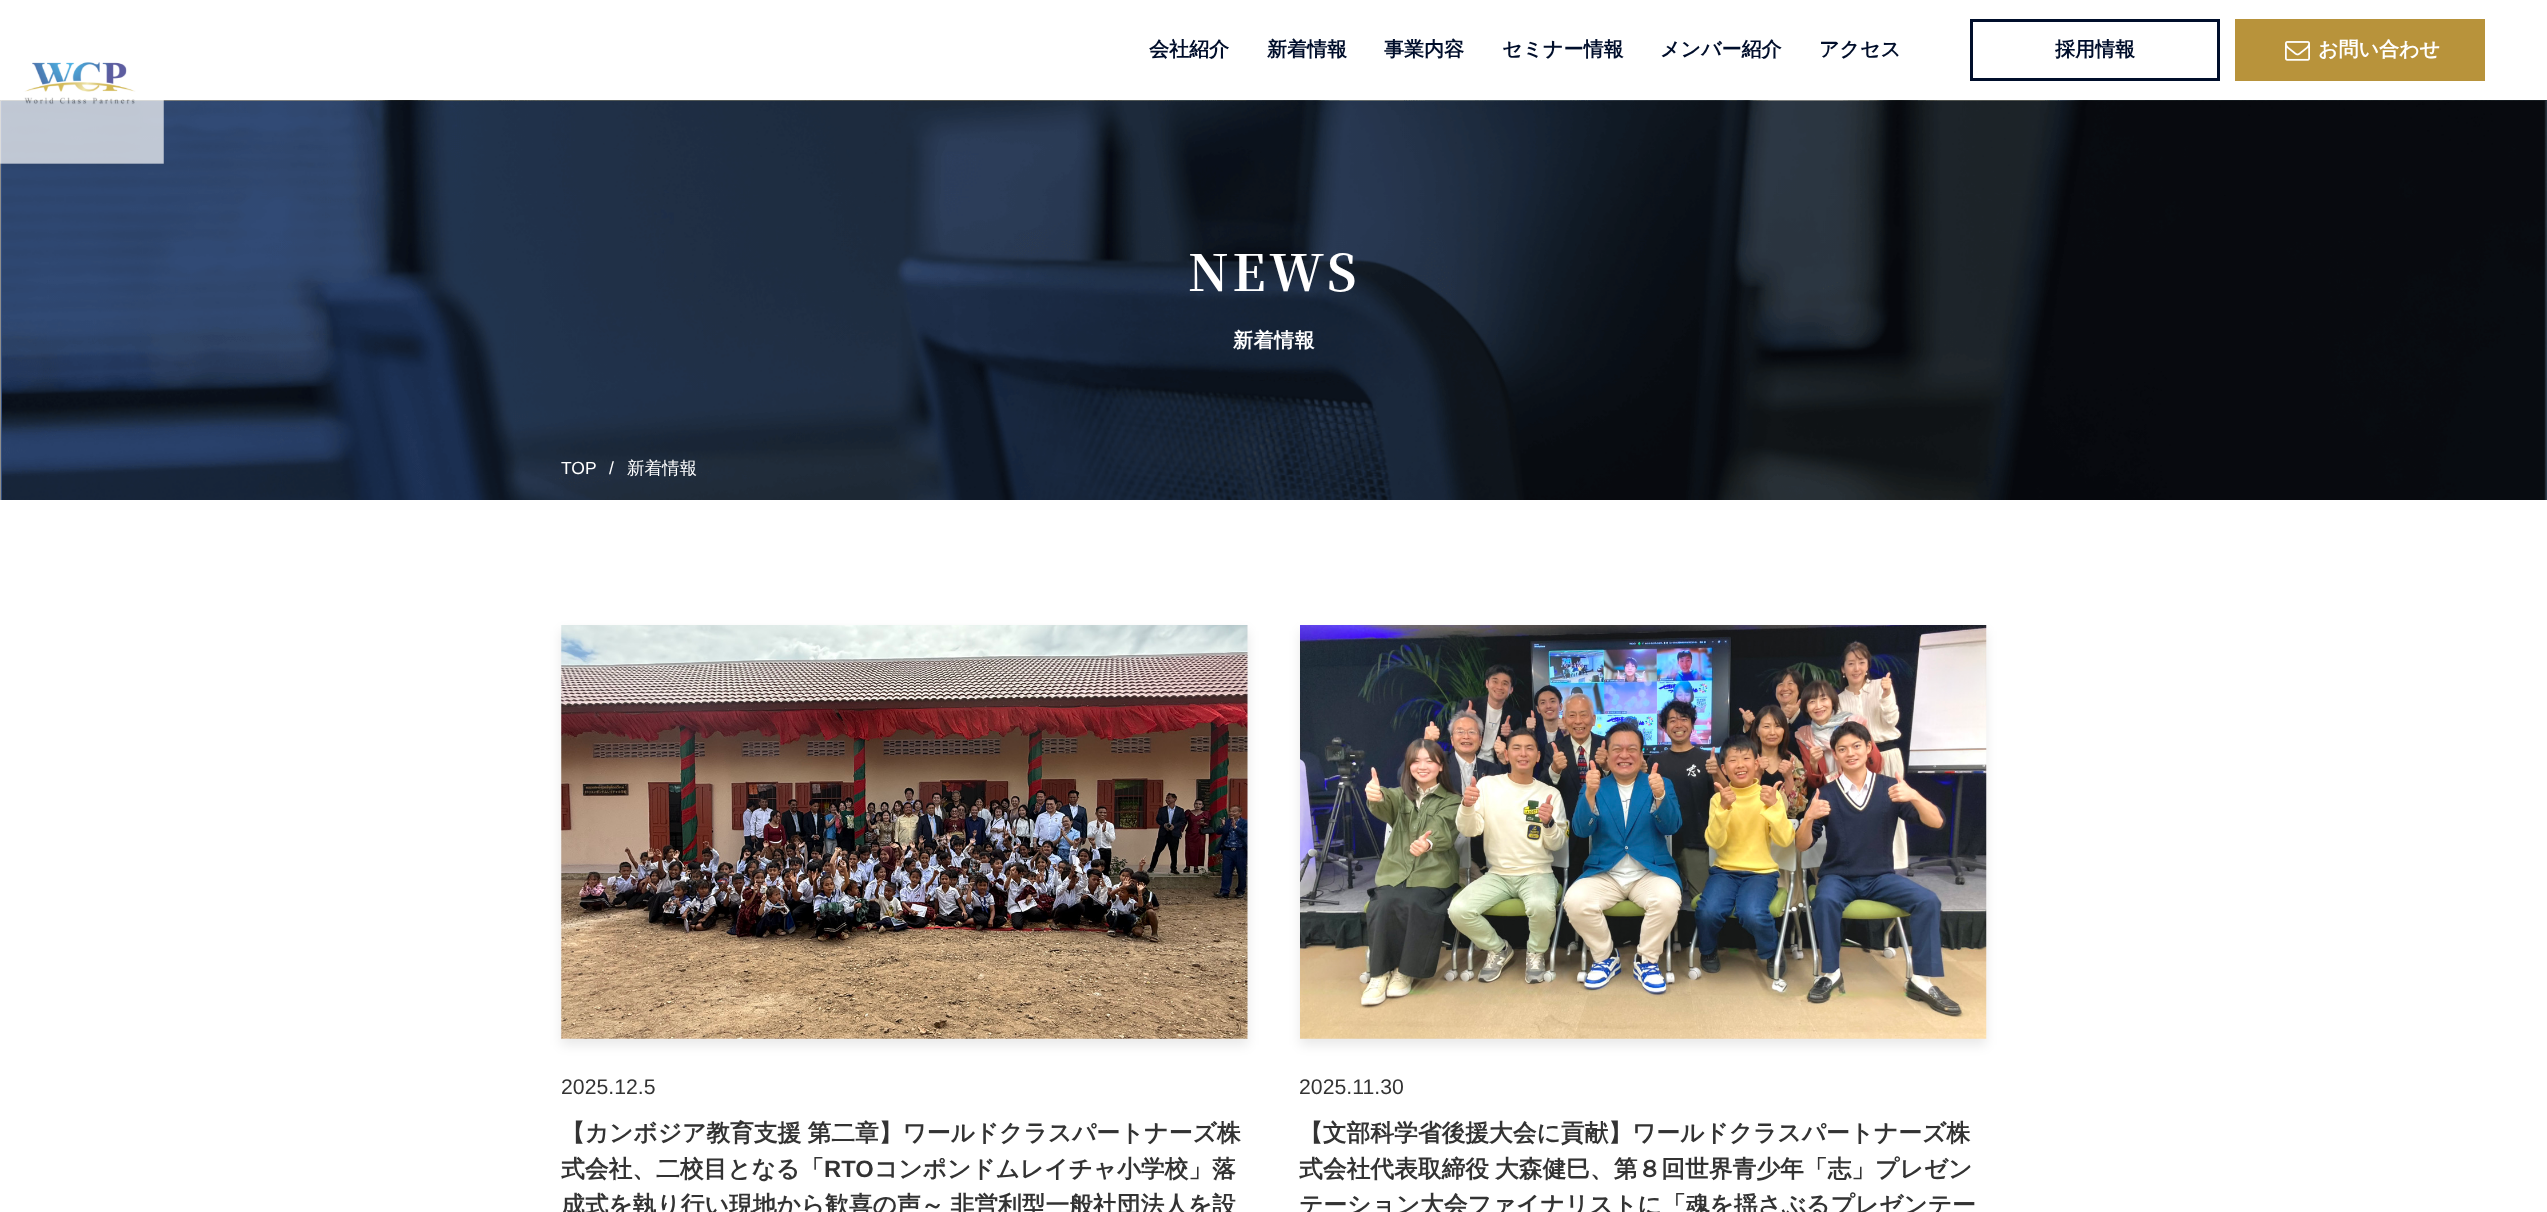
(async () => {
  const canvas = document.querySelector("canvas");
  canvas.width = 2547;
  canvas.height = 1212;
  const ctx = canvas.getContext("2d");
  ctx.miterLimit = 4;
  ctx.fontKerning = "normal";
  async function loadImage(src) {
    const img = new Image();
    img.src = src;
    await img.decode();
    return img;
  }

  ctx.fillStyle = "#ffffff";
  ctx.fillRect(0, 0, 2547, 1212);
  ctx.strokeStyle = "#000e2b";
  ctx.lineWidth = 3;
  ctx.strokeRect(1971.5, 20.5, 247, 59);
  ctx.fillStyle = "#b8933b";
  ctx.fillRect(2235, 19, 250, 62);
  ctx.drawImage(await loadImage("img/1.png"), 2285, 41, 25, 20);
  ctx.drawImage(await loadImage("img/3.png"), 0, 100, 2547, 400);
  ctx.drawImage(await loadImage("img/2.png"), 0, 62, 164, 102);
  ctx.fillStyle = "rgba(0, 0, 0, 0.09)";
  ctx.filter = "blur(6px)";
  ctx.beginPath();
  ctx.rect(561, 631, 687, 414);
  ctx.fill();
  ctx.filter = "none";
  ctx.drawImage(await loadImage("img/4.png"), 561, 625, 687, 414);
  ctx.filter = "blur(6px)";
  ctx.beginPath();
  ctx.rect(1300, 631, 686, 414);
  ctx.fill();
  ctx.filter = "none";
  ctx.drawImage(await loadImage("img/5.png"), 1300, 625, 687, 414);
  ctx.font = "bold 20px WenQuanYi Zen Hei";
  ctx.fillStyle = "#000e2b";
  for (const [text, x, y] of [
    ["会社紹介", 1149, 56],
    ["新着情報", 1267, 56],
    ["事業内容", 1384, 56],
    ["セミナー情報", 1502, 56],
    ["メンバー紹介", 1660, 56],
    ["アクセス", 1819, 56],
    ["採用情報", 2055, 56],
  ]) {
    ctx.fillText(text, x, y);
  }
  ctx.fillStyle = "#ffffff";
  ctx.fillText("お問い合わせ", 2318, 56);
  ctx.letterSpacing = "4px";
  ctx.font = "200 50px Noto Serif JP";
  ctx.fillText("NEWS", 1188, 291);
  ctx.letterSpacing = "0.5px";
  ctx.font = "bold 20px WenQuanYi Zen Hei";
  ctx.fillText("新着情報", 1233, 347);
  ctx.letterSpacing = "0px";
  ctx.font = "17.5px Liberation Sans";
  ctx.fillText("TOP", 561, 474);
  ctx.fillText("/", 609, 474);
  ctx.font = "500 17.5px WenQuanYi Zen Hei";
  ctx.fillText("新着情報", 627, 474);
  ctx.font = "21.25px Liberation Sans";
  ctx.fillStyle = "#333333";
  ctx.fillText("2025.12.5", 561, 1094);
  ctx.wordSpacing = "-1px";
  ctx.font = "bold 23.75px WenQuanYi Zen Hei";
  ctx.fillText("【カンボジア教育支援 第二章】ワールドクラスパートナーズ株", 561, 1141);
  ctx.wordSpacing = "0px";
  ctx.fillText("式会社、二校目となる「", 561, 1177);
  ctx.font = "bold 23.75px Liberation Sans";
  ctx.fillText("RTO", 824, 1177);
  ctx.font = "bold 23.75px WenQuanYi Zen Hei";
  ctx.fillText("コンポンドムレイチャ小学校」落", 874, 1177);
  ctx.wordSpacing = "-1px";
  ctx.fillText("成式を執り行い現地から歓喜の声～ 非営利型一般社団法人を設", 561, 1213);
  ctx.wordSpacing = "0px";
  ctx.font = "21.25px Liberation Sans";
  ctx.fillText("2025.11.30", 1299, 1094);
  ctx.font = "bold 23.75px WenQuanYi Zen Hei";
  ctx.fillText("【文部科学省後援大会に貢献】ワールドクラスパートナーズ株", 1299, 1141);
  ctx.wordSpacing = "-1px";
  ctx.fillText("式会社代表取締役 大森健巳、第８回世界青少年「志」プレゼン", 1299, 1177);
  ctx.wordSpacing = "0px";
  ctx.fillText("テーション大会ファイナリストに「魂を揺さぶるプレゼンテー", 1299, 1213);
})();
